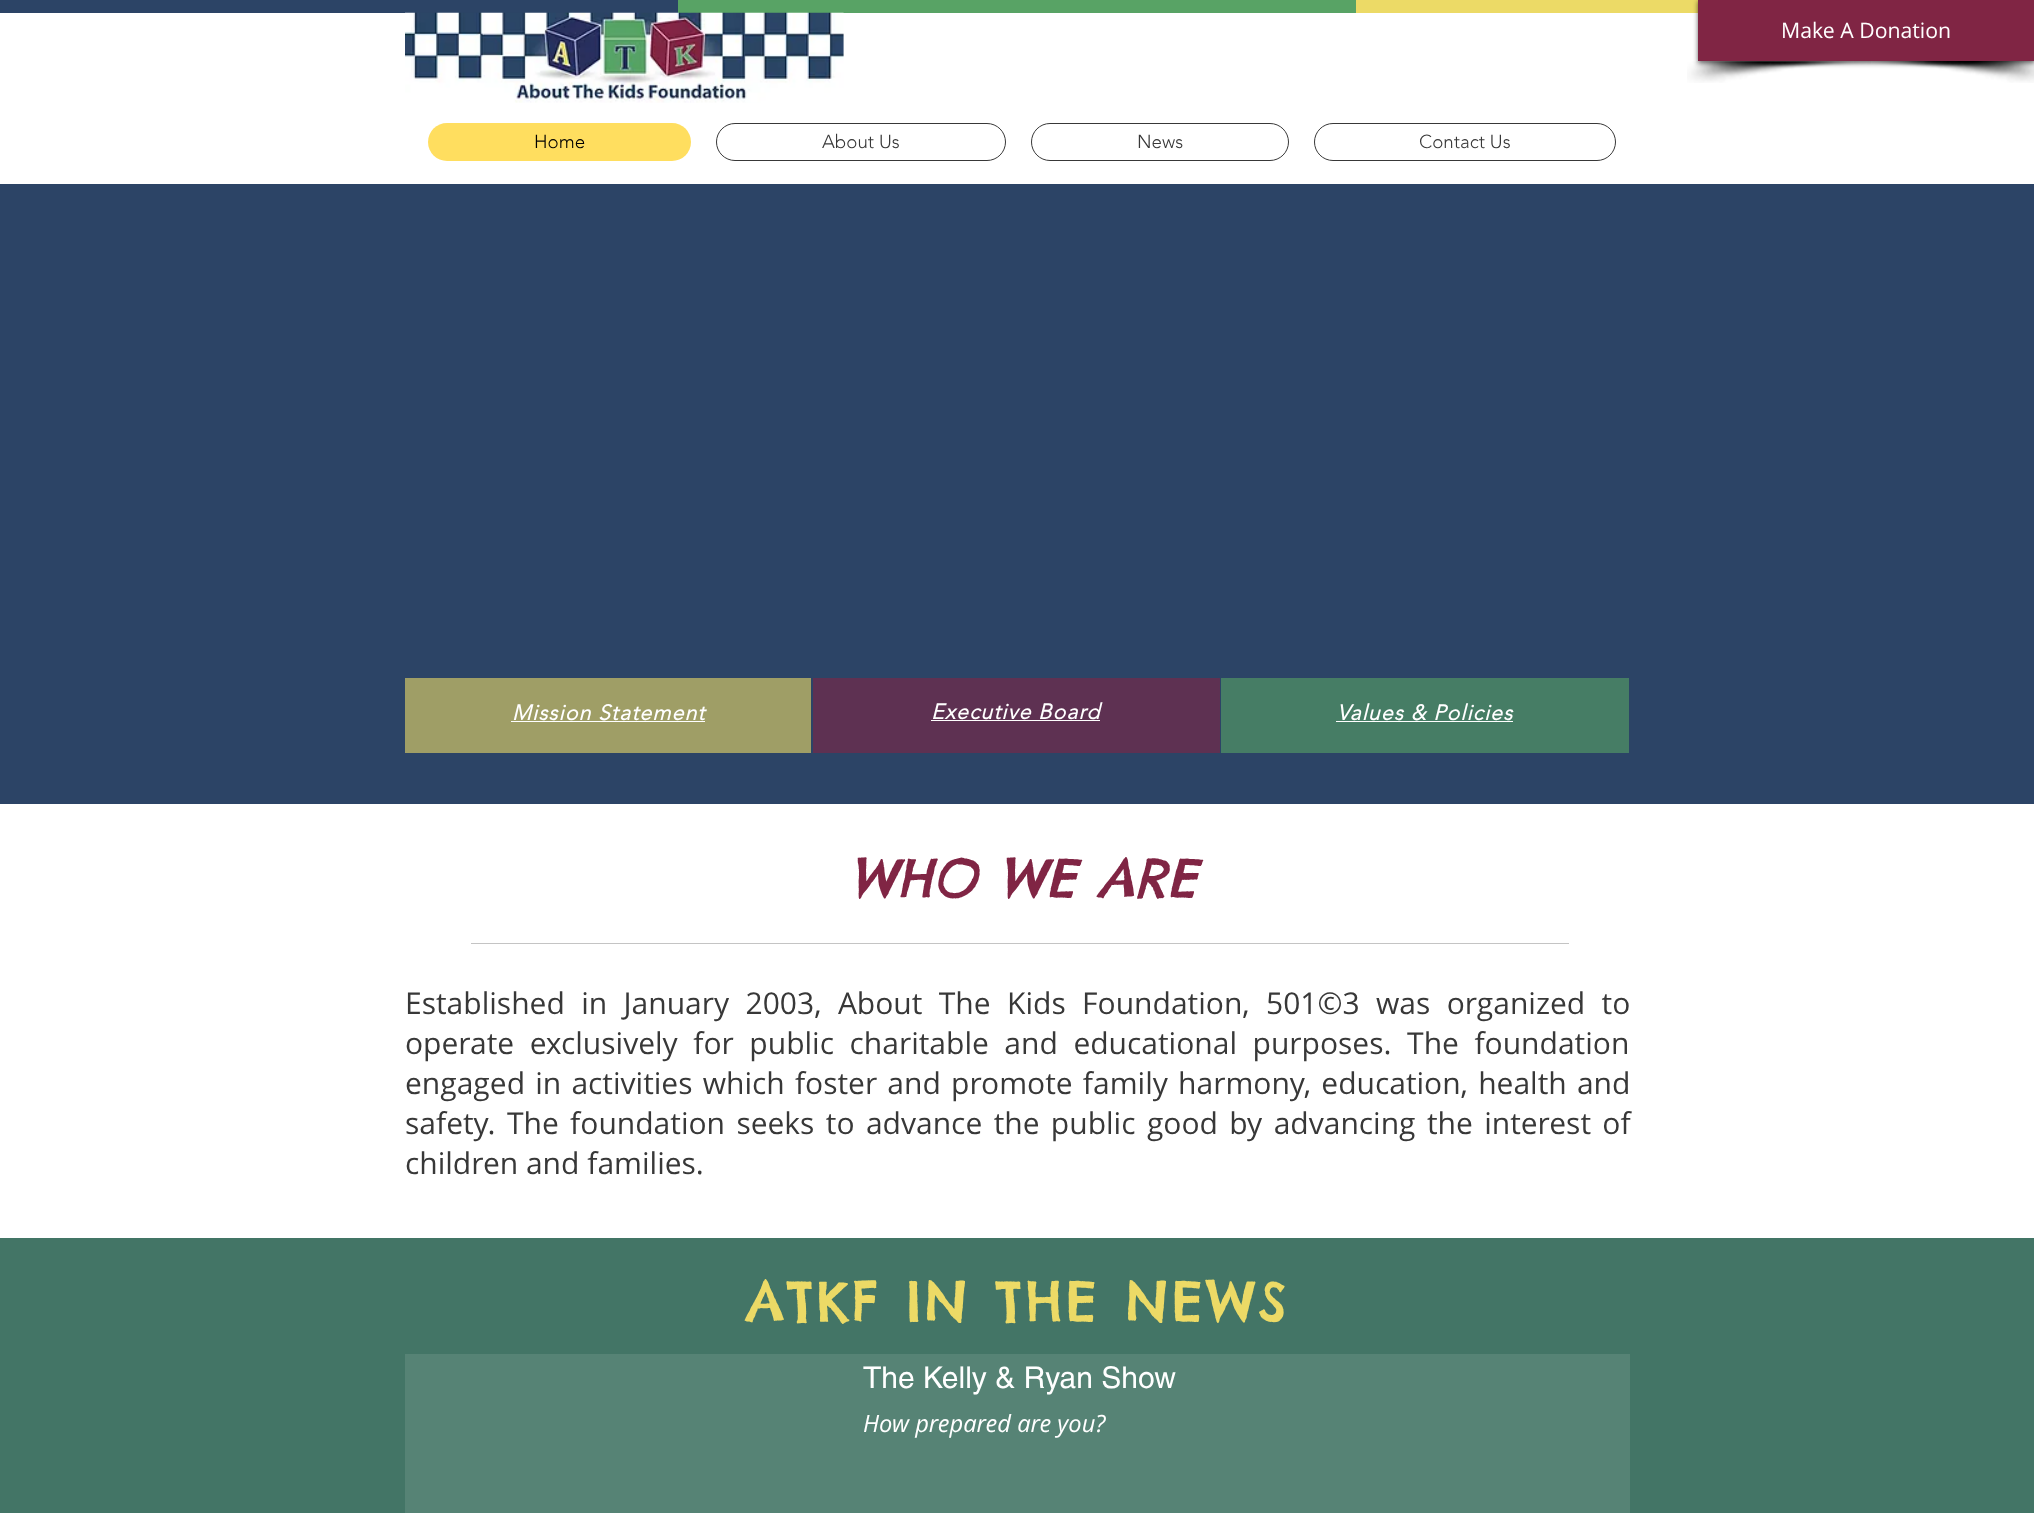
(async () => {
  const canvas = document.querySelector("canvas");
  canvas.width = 2034;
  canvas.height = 1513;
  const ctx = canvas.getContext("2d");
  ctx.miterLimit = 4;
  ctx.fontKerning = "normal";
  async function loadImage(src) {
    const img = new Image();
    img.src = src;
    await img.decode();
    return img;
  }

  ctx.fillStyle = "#2c4466";
  ctx.fillRect(0, 0, 2034, 1513);
  ctx.fillStyle = "#ffffff";
  ctx.fillRect(0, 13, 2034, 171);
  ctx.drawImage(await loadImage("img/1.png"), 1687, 61, 184, 22);
  ctx.drawImage(await loadImage("img/2.png"), 1854, 61, 180, 22);
  ctx.fillStyle = "#ecda66";
  ctx.fillRect(1356, 0, 342, 13);
  ctx.fillStyle = "rgba(0, 0, 0, 0.6)";
  ctx.filter = "blur(2.5px)";
  ctx.beginPath();
  ctx.rect(1698, 1, 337, 62);
  ctx.fill();
  ctx.filter = "none";
  ctx.fillStyle = "#802544";
  ctx.fillRect(1698, 0, 336, 61);
  ctx.fillStyle = "#58a365";
  ctx.fillRect(678, 0, 678, 13);
  ctx.drawImage(await loadImage("img/3.png"), 405, 12, 439, 91);
  ctx.fillStyle = "#ffde5f";
  ctx.beginPath();
  ctx.roundRect(428, 123, 263, 38, 19);
  ctx.fill();
  ctx.beginPath();
  ctx.roundRect(716.5, 123.5, 289, 37, 18.5);
  ctx.strokeStyle = "#383838";
  ctx.stroke();
  ctx.beginPath();
  ctx.roundRect(1031.5, 123.5, 257, 37, 18.5);
  ctx.stroke();
  ctx.beginPath();
  ctx.roundRect(1314.5, 123.5, 301, 37, 18.5);
  ctx.stroke();
  for (const [x, y, w, h, color] of [
    [405, 678, 406, 75, "#9f9e66"],
    [511, 721, 194, 1, "#ffffff"],
    [813, 678, 407, 75, "#5e3152"],
    [931, 720, 169, 1, "#ffffff"],
    [1221, 678, 408, 75, "#467d65"],
    [1336, 721, 177, 1, "#ffffff"],
    [0, 804, 2034, 434, "#ffffff"],
    [471, 943, 1098, 1, "#c4c4c4"],
    [0, 1238, 2034, 275, "#437566"],
    [405, 1354, 1225, 159, "#568375"],
  ]) {
    ctx.fillStyle = color;
    ctx.fillRect(x, y, w, h);
  }
  ctx.font = "21.25px Open Sans";
  ctx.fillStyle = "#ffffff";
  ctx.fillText("Make A Donation", 1781, 38);
  ctx.font = "300 18.75px 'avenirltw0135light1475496'";
  ctx.fillStyle = "#000000";
  ctx.fillText("Home", 534, 148);
  ctx.fillStyle = "#383838";
  for (const [text, x, y] of [
    ["About Us", 822, 148],
    ["News", 1137, 148],
    ["Contact Us", 1419, 148],
  ]) {
    ctx.fillText(text, x, y);
  }
  ctx.letterSpacing = "1.1px";
  ctx.font = "italic bold 21.25px 'avenirltw0135light1475496'";
  ctx.fillStyle = "#ffffff";
  for (const [text, x, y] of [
    ["Mission Statement", 512, 720],
    ["Executive Board", 931, 719],
    ["Values & Policies", 1337, 720],
  ]) {
    ctx.fillText(text, x, y);
  }
  ctx.letterSpacing = "0px";
  ctx.font = "italic 52.5px Chelsea Market";
  ctx.fillStyle = "#802544";
  ctx.fillText("WHO WE ARE", 849, 897);
  ctx.wordSpacing = "8.6px";
  ctx.font = "30px Open Sans";
  ctx.fillStyle = "#383838";
  ctx.fillText("Established in January 2003, About The Kids Foundation, 501©3 was organized to", 405, 1014);
  ctx.wordSpacing = "7.75px";
  ctx.fillText("operate exclusively for public charitable and educational purposes. The foundation", 405, 1054);
  ctx.wordSpacing = "2.4px";
  ctx.fillText("engaged in activities which foster and promote family harmony, education, health and", 405, 1094);
  ctx.wordSpacing = "3.6px";
  ctx.fillText("safety. The foundation seeks to advance the public good by advancing the interest of", 405, 1134);
  ctx.wordSpacing = "0px";
  ctx.fillText("children and families.", 405, 1174);
  ctx.letterSpacing = "2.75px";
  ctx.font = "55px Chelsea Market";
  ctx.fillStyle = "#ecda66";
  ctx.fillText("ATKF IN THE NEWS", 746, 1321);
  ctx.letterSpacing = "0px";
  ctx.font = "30px helvetica";
  ctx.fillStyle = "#ffffff";
  ctx.fillText("The Kelly & Ryan Show", 863, 1388);
  ctx.font = "italic 23.75px Open Sans";
  ctx.fillText("How prepared are you?", 863, 1432);
})();
